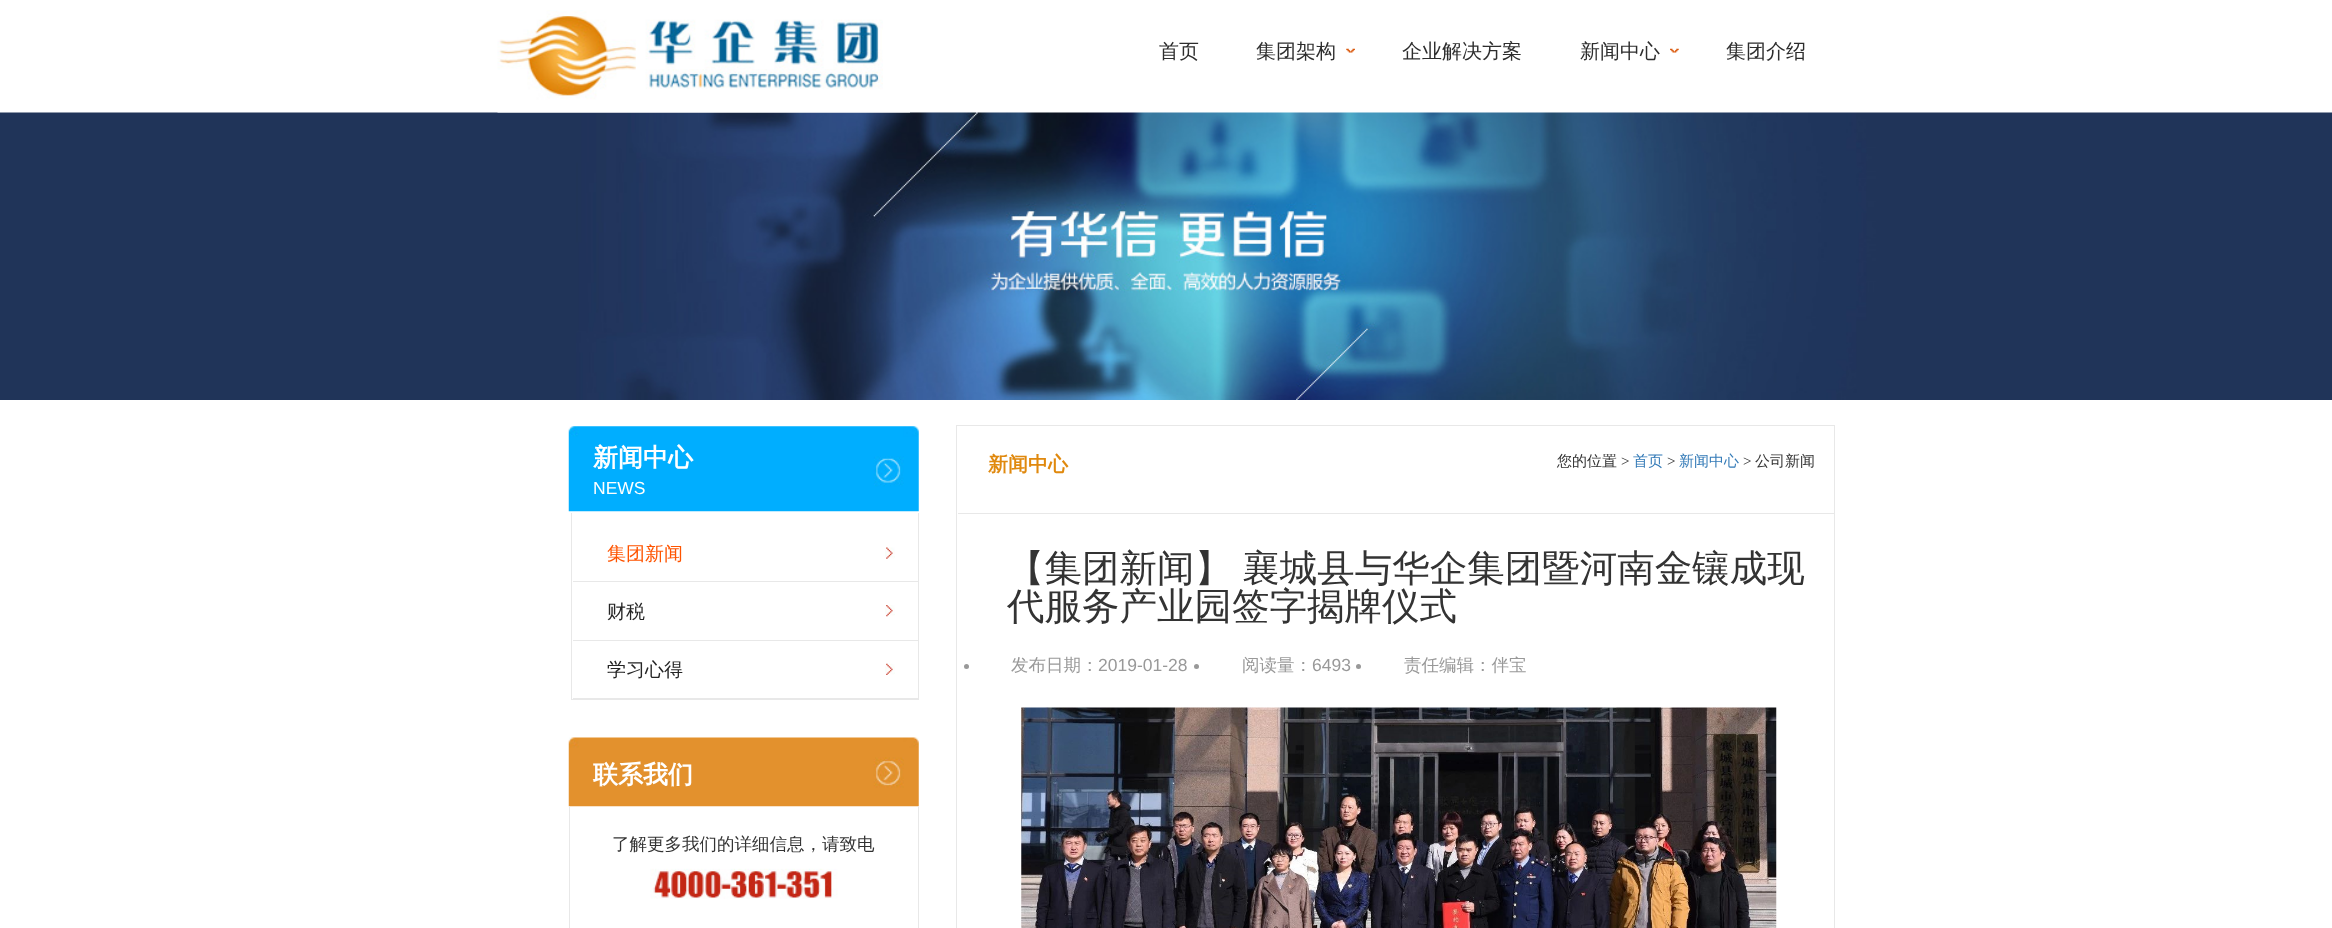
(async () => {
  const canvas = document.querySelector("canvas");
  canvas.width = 2332;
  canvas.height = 928;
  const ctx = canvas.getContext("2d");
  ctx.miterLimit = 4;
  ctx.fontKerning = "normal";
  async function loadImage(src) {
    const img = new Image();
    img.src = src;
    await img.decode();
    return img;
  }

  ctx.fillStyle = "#ffffff";
  ctx.fillRect(0, 0, 2332, 928);
  ctx.drawImage(await loadImage("img/4.png"), 0, 112, 2332, 288);
  ctx.drawImage(await loadImage("img/1.png"), 497, 10, 413, 103);
  ctx.drawImage(await loadImage("img/2.png"), 1346, 48, 9, 5);
  ctx.drawImage(await loadImage("img/3.png"), 1670, 48, 9, 5);
  ctx.drawImage(await loadImage("img/5.png"), 568, 426, 351, 86);
  for (const [x, y, w, h, color] of [
    [918, 513, 1, 187, "#e8e8e8"],
    [571, 699, 348, 1, "#e8e8e8"],
    [571, 513, 1, 187, "#e8e8e8"],
  ]) {
    ctx.fillStyle = color;
    ctx.fillRect(x, y, w, h);
  }
  ctx.drawImage(await loadImage("img/6.png"), 885, 547, 10, 12);
  ctx.fillRect(573, 581, 345, 1);
  ctx.drawImage(await loadImage("img/7.png"), 885, 605, 10, 12);
  ctx.fillRect(573, 640, 345, 1);
  ctx.drawImage(await loadImage("img/8.png"), 885, 663, 10, 12);
  ctx.fillRect(573, 698, 345, 1);
  ctx.drawImage(await loadImage("img/9.png"), 568, 737, 351, 70);
  ctx.fillRect(918, 806, 1, 122);
  ctx.fillRect(569, 806, 1, 122);
  ctx.drawImage(await loadImage("img/10.png"), 650, 868, 188, 31);
  ctx.strokeStyle = "#e8e8e8";
  ctx.strokeRect(956.5, 425.5, 878, 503);
  ctx.fillRect(958, 513, 876, 1);
  ctx.fillStyle = "#999999";
  ctx.beginPath();
  ctx.arc(966.5, 666.5, 2.5, 0, Math.PI * 2);
  ctx.fill();
  ctx.beginPath();
  ctx.arc(1196.5, 666.5, 2.5, 0, Math.PI * 2);
  ctx.fill();
  ctx.beginPath();
  ctx.arc(1358.5, 666.5, 2.5, 0, Math.PI * 2);
  ctx.fill();
  ctx.drawImage(await loadImage("img/11.png"), 1021, 707, 756, 221);
  ctx.font = "500 20px WenQuanYi Zen Hei";
  ctx.fillStyle = "#2d2d2d";
  for (const [text, x, y] of [
    ["首页", 1159, 58],
    ["集团架构", 1256, 58],
    ["企业解决方案", 1402, 58],
    ["新闻中心", 1580, 58],
    ["集团介绍", 1726, 58],
  ]) {
    ctx.fillText(text, x, y);
  }
  ctx.font = "bold 25px WenQuanYi Zen Hei";
  ctx.fillStyle = "#ffffff";
  ctx.fillText("新闻中心", 593, 466);
  ctx.font = "17.5px Liberation Sans";
  ctx.fillText("NEWS", 593, 494);
  ctx.font = "500 19px WenQuanYi Zen Hei";
  ctx.fillStyle = "#fe5400";
  ctx.fillText("集团新闻", 607, 560);
  ctx.fillStyle = "#252525";
  ctx.fillText("财税", 607, 618);
  ctx.fillText("学习心得", 607, 676);
  ctx.font = "bold 25px WenQuanYi Zen Hei";
  ctx.fillStyle = "#ffffff";
  ctx.fillText("联系我们", 593, 783);
  ctx.font = "500 17.5px WenQuanYi Zen Hei";
  ctx.fillStyle = "#333333";
  ctx.fillText("了解更多我们的详细信息，请致电", 612, 850);
  ctx.font = "bold 20px WenQuanYi Zen Hei";
  ctx.fillStyle = "#e0890e";
  ctx.fillText("新闻中心", 988, 471);
  ctx.font = "500 15px WenQuanYi Zen Hei";
  ctx.fillStyle = "#333333";
  ctx.fillText("您的位置", 1557, 466);
  ctx.font = "15px Liberation Serif";
  ctx.fillText(">", 1621, 466);
  ctx.font = "500 15px WenQuanYi Zen Hei";
  ctx.fillStyle = "#337ab7";
  ctx.fillText("首页", 1633, 466);
  ctx.font = "15px Liberation Serif";
  ctx.fillStyle = "#333333";
  ctx.fillText(">", 1667, 466);
  ctx.font = "500 15px WenQuanYi Zen Hei";
  ctx.fillStyle = "#337ab7";
  ctx.fillText("新闻中心", 1679, 466);
  ctx.font = "15px Liberation Serif";
  ctx.fillStyle = "#333333";
  ctx.fillText(">", 1743, 466);
  ctx.font = "500 15px WenQuanYi Zen Hei";
  ctx.fillText("公司新闻", 1755, 466);
  ctx.wordSpacing = "-1px";
  ctx.font = "500 37.5px WenQuanYi Zen Hei";
  ctx.fillText("【集团新闻】 襄城县与华企集团暨河南金镶成现", 1007, 581);
  ctx.wordSpacing = "0px";
  ctx.fillText("代服务产业园签字揭牌仪式", 1007, 619);
  ctx.font = "500 17.5px WenQuanYi Zen Hei";
  ctx.fillStyle = "#999999";
  ctx.fillText("发布日期：", 1011, 671);
  ctx.font = "17.5px Liberation Sans";
  ctx.fillText("2019-01-28", 1098, 671);
  ctx.font = "500 17.5px WenQuanYi Zen Hei";
  ctx.fillText("阅读量：", 1242, 671);
  ctx.font = "17.5px Liberation Sans";
  ctx.fillText("6493", 1312, 671);
  ctx.font = "500 17.5px WenQuanYi Zen Hei";
  ctx.fillText("责任编辑：伴宝", 1404, 671);
})();
